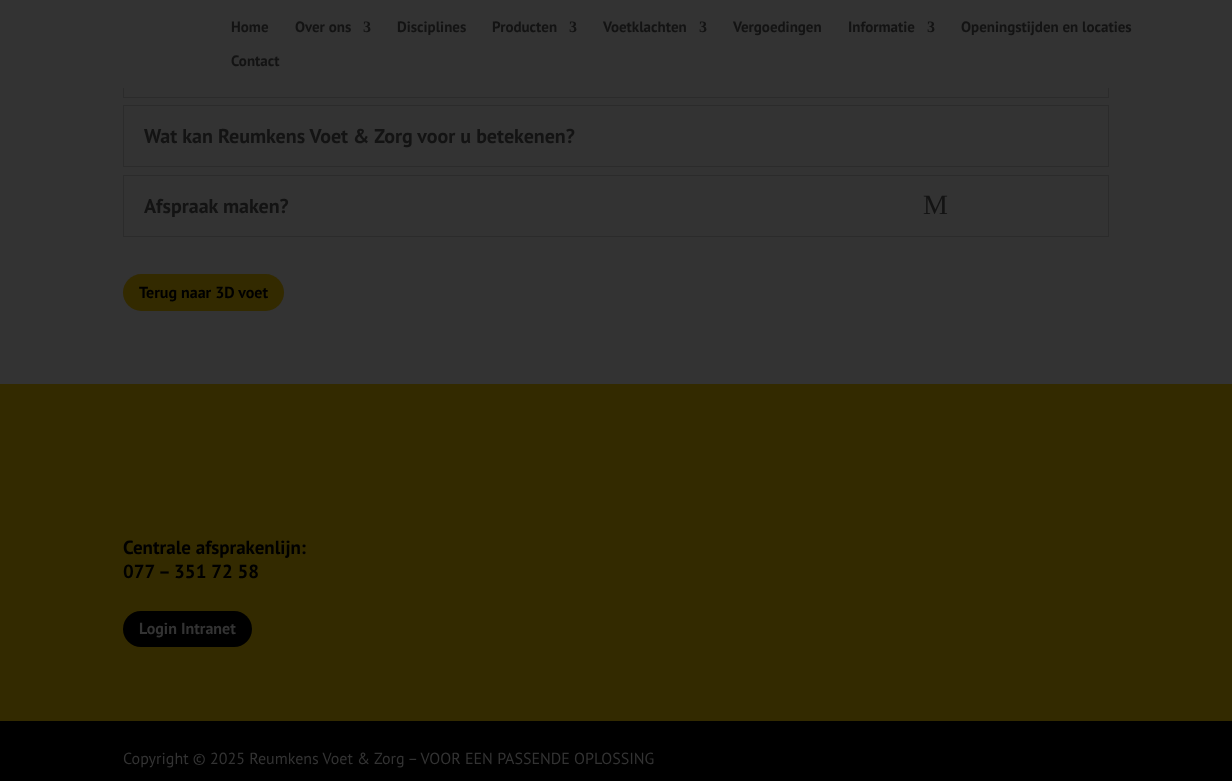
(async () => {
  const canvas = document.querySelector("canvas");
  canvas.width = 1232;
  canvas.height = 781;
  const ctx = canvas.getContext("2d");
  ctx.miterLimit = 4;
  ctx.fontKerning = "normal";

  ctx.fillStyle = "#333333";
  ctx.fillRect(0, 0, 1232, 781);
  ctx.strokeStyle = "#2b2b2b";
  ctx.strokeRect(123.5, 36.5, 985, 61);
  ctx.fillRect(123, 36, 986, 52);
  ctx.strokeRect(123.5, 105.5, 985, 61);
  ctx.strokeRect(123.5, 175.5, 985, 61);
  ctx.fillStyle = "#332a00";
  ctx.beginPath();
  ctx.roundRect(123, 274, 161, 37, 18.5);
  ctx.fill();
  ctx.fillRect(0, 384, 1232, 337);
  ctx.fillStyle = "#000000";
  ctx.beginPath();
  ctx.roundRect(123, 611, 129, 36, 18);
  ctx.fill();
  ctx.fillRect(0, 721, 1232, 60);
  ctx.font = "bold 15px PT Sans";
  ctx.fillStyle = "#131313";
  ctx.fillText("Home", 231, 32);
  ctx.fillText("Over ons", 295, 32);
  ctx.font = "bold 16px Liberation Serif";
  ctx.fillText("3", 363, 32);
  ctx.font = "bold 15px PT Sans";
  ctx.fillText("Disciplines", 397, 32);
  ctx.fillText("Producten", 492, 32);
  ctx.font = "bold 16px Liberation Serif";
  ctx.fillText("3", 569, 32);
  ctx.font = "bold 15px PT Sans";
  ctx.fillText("Voetklachten", 603, 32);
  ctx.font = "bold 16px Liberation Serif";
  ctx.fillText("3", 699, 32);
  ctx.font = "bold 15px PT Sans";
  ctx.fillText("Vergoedingen", 733, 32);
  ctx.fillText("Informatie", 848, 32);
  ctx.font = "bold 16px Liberation Serif";
  ctx.fillText("3", 927, 32);
  ctx.font = "bold 15px PT Sans";
  ctx.fillText("Openingstijden en locaties", 961, 32);
  ctx.fillText("Contact", 231, 66);
  ctx.font = "bold 20px PT Sans";
  ctx.fillText("Wat kan Reumkens Voet & Zorg voor u betekenen?", 144, 143);
  ctx.fillText("Afspraak maken?", 144, 213);
  ctx.font = "bold 16px PT Sans";
  ctx.fillStyle = "#000000";
  ctx.fillText("Terug naar 3D voet", 139, 298);
  ctx.font = "bold 19px PT Sans";
  ctx.fillText("Centrale afsprakenlijn:", 123, 554);
  ctx.fillText("077 – 351 72 58", 123, 578);
  ctx.font = "bold 16px PT Sans";
  ctx.fillStyle = "#333333";
  ctx.fillText("Login Intranet", 139, 634);
  ctx.font = "16px PT Sans";
  ctx.fillText("Copyright © 2025 Reumkens Voet & Zorg – VOOR EEN PASSENDE OPLOSSING", 123, 764);
  ctx.font = "28px Liberation Serif";
  ctx.fillStyle = "#131313";
  ctx.fillText("M", 923, 214);
})();
